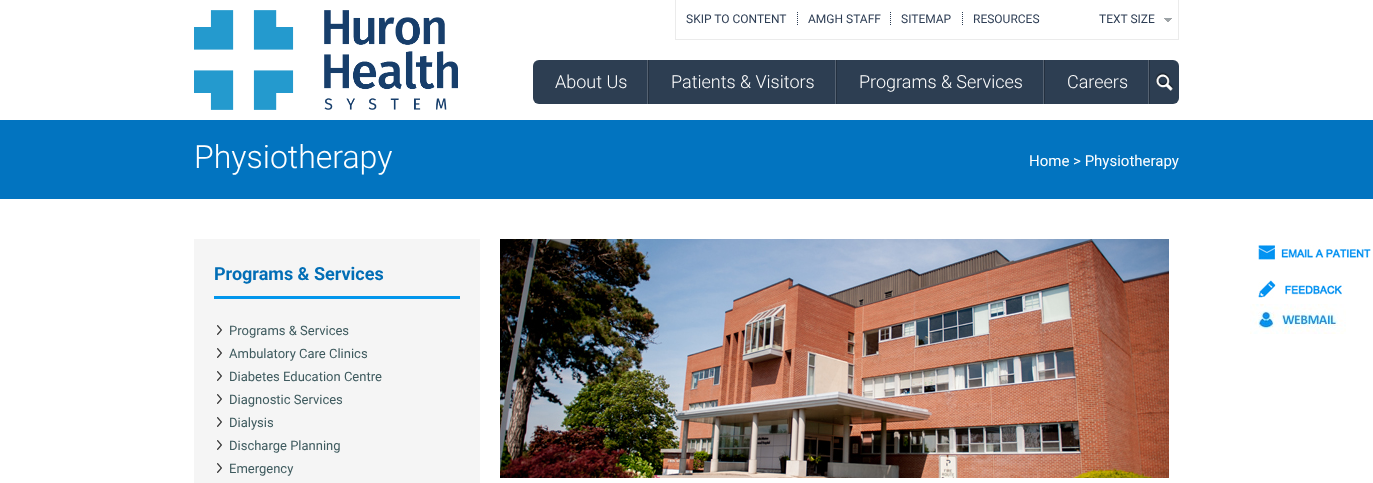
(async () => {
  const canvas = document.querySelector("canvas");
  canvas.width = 1373;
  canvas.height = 483;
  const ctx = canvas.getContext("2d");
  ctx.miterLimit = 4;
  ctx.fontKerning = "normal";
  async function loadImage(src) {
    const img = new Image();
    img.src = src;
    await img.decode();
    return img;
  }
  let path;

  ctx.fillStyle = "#ffffff";
  ctx.fillRect(0, 0, 1373, 483);
  ctx.fillStyle = "#0274c0";
  ctx.fillRect(0, 120, 1373, 79);
  ctx.drawImage(await loadImage("img/1.png"), 194, 10, 264, 100);
  for (const [x, y, w, h, color] of [
    [1178, 0, 1, 40, "#ebebeb"],
    [675, 39, 504, 1, "#ebebeb"],
    [675, 0, 1, 40, "#ebebeb"],
  ]) {
    ctx.fillStyle = color;
    ctx.fillRect(x, y, w, h);
  }
  path = new Path2D("M797.5 12V26");
  ctx.strokeStyle = "#2d3d54";
  ctx.setLineDash([1, 1]);
  ctx.stroke(path);
  path = new Path2D("M890.5 12V26");
  ctx.stroke(path);
  path = new Path2D("M962.5 12V26");
  ctx.stroke(path);
  ctx.drawImage(await loadImage("img/2.png"), 1164, 18, 8, 4);
  ctx.fillStyle = "#2d3e52";
  ctx.beginPath();
  ctx.roundRect(533, 60, 116, 44, [6, 0, 0, 6]);
  ctx.fill();
  ctx.drawImage(await loadImage("img/3.png"), 647, 60, 2, 44);
  ctx.fillRect(649, 60, 186, 44);
  ctx.drawImage(await loadImage("img/3.png"), 835, 60, 2, 44);
  ctx.fillRect(837, 60, 206, 44);
  ctx.drawImage(await loadImage("img/3.png"), 1043, 60, 2, 44);
  ctx.fillRect(1045, 60, 103, 44);
  ctx.drawImage(await loadImage("img/3.png"), 1148, 60, 2, 44);
  ctx.beginPath();
  ctx.roundRect(1150, 60, 29, 44, [0, 6, 6, 0]);
  ctx.fill();
  ctx.drawImage(await loadImage("img/4.png"), 1155, 72, 19, 19);
  ctx.fillStyle = "#f5f5f5";
  ctx.fillRect(194, 239, 286, 244);
  ctx.fillStyle = "#0296ec";
  ctx.fillRect(214, 296, 246, 3);
  ctx.drawImage(await loadImage("img/5.png"), 217, 325, 5, 10);
  ctx.drawImage(await loadImage("img/5.png"), 217, 348, 5, 10);
  ctx.drawImage(await loadImage("img/5.png"), 217, 371, 5, 10);
  ctx.drawImage(await loadImage("img/5.png"), 217, 394, 5, 10);
  ctx.drawImage(await loadImage("img/5.png"), 217, 417, 5, 10);
  ctx.drawImage(await loadImage("img/5.png"), 217, 440, 5, 10);
  ctx.drawImage(await loadImage("img/5.png"), 217, 463, 5, 10);
  ctx.drawImage(await loadImage("img/6.png"), 500, 239, 669, 239);
  ctx.drawImage(await loadImage("img/7.png"), 1258, 245, 113, 15);
  ctx.drawImage(await loadImage("img/8.png"), 1258, 280, 86, 18);
  ctx.drawImage(await loadImage("img/9.png"), 1250, 304, 96, 30);
  ctx.font = "12px Roboto";
  ctx.fillStyle = "#2d3d54";
  for (const [text, x, y] of [
    ["SKIP TO CONTENT", 686, 23],
    ["AMGH STAFF", 808, 23],
    ["SITEMAP", 901, 23],
    ["RESOURCES", 973, 23],
    ["TEXT SIZE", 1099, 23],
  ]) {
    ctx.fillText(text, x, y);
  }
  ctx.font = "300 18px Roboto";
  ctx.fillStyle = "#ffffff";
  for (const [text, x, y] of [
    ["About Us", 555, 88],
    ["Patients & Visitors", 671, 88],
    ["Programs & Services", 859, 88],
    ["Careers", 1067, 88],
  ]) {
    ctx.fillText(text, x, y);
  }
  ctx.font = "300 32px Roboto";
  ctx.fillText("Physiotherapy", 194, 168);
  ctx.font = "15px Roboto";
  ctx.fillText("Home > Physiotherapy", 1029, 166);
  ctx.font = "bold 18px Roboto";
  ctx.fillStyle = "#026eb6";
  ctx.fillText("Programs & Services", 214, 280);
  ctx.font = "13px Roboto";
  ctx.fillStyle = "#3e5a5e";
  for (const [text, x, y] of [
    ["Programs & Services", 229, 335],
    ["Ambulatory Care Clinics", 229, 358],
    ["Diabetes Education Centre", 229, 381],
    ["Diagnostic Services", 229, 404],
    ["Dialysis", 229, 427],
    ["Discharge Planning", 229, 450],
    ["Emergency", 229, 473],
  ]) {
    ctx.fillText(text, x, y);
  }
})();
